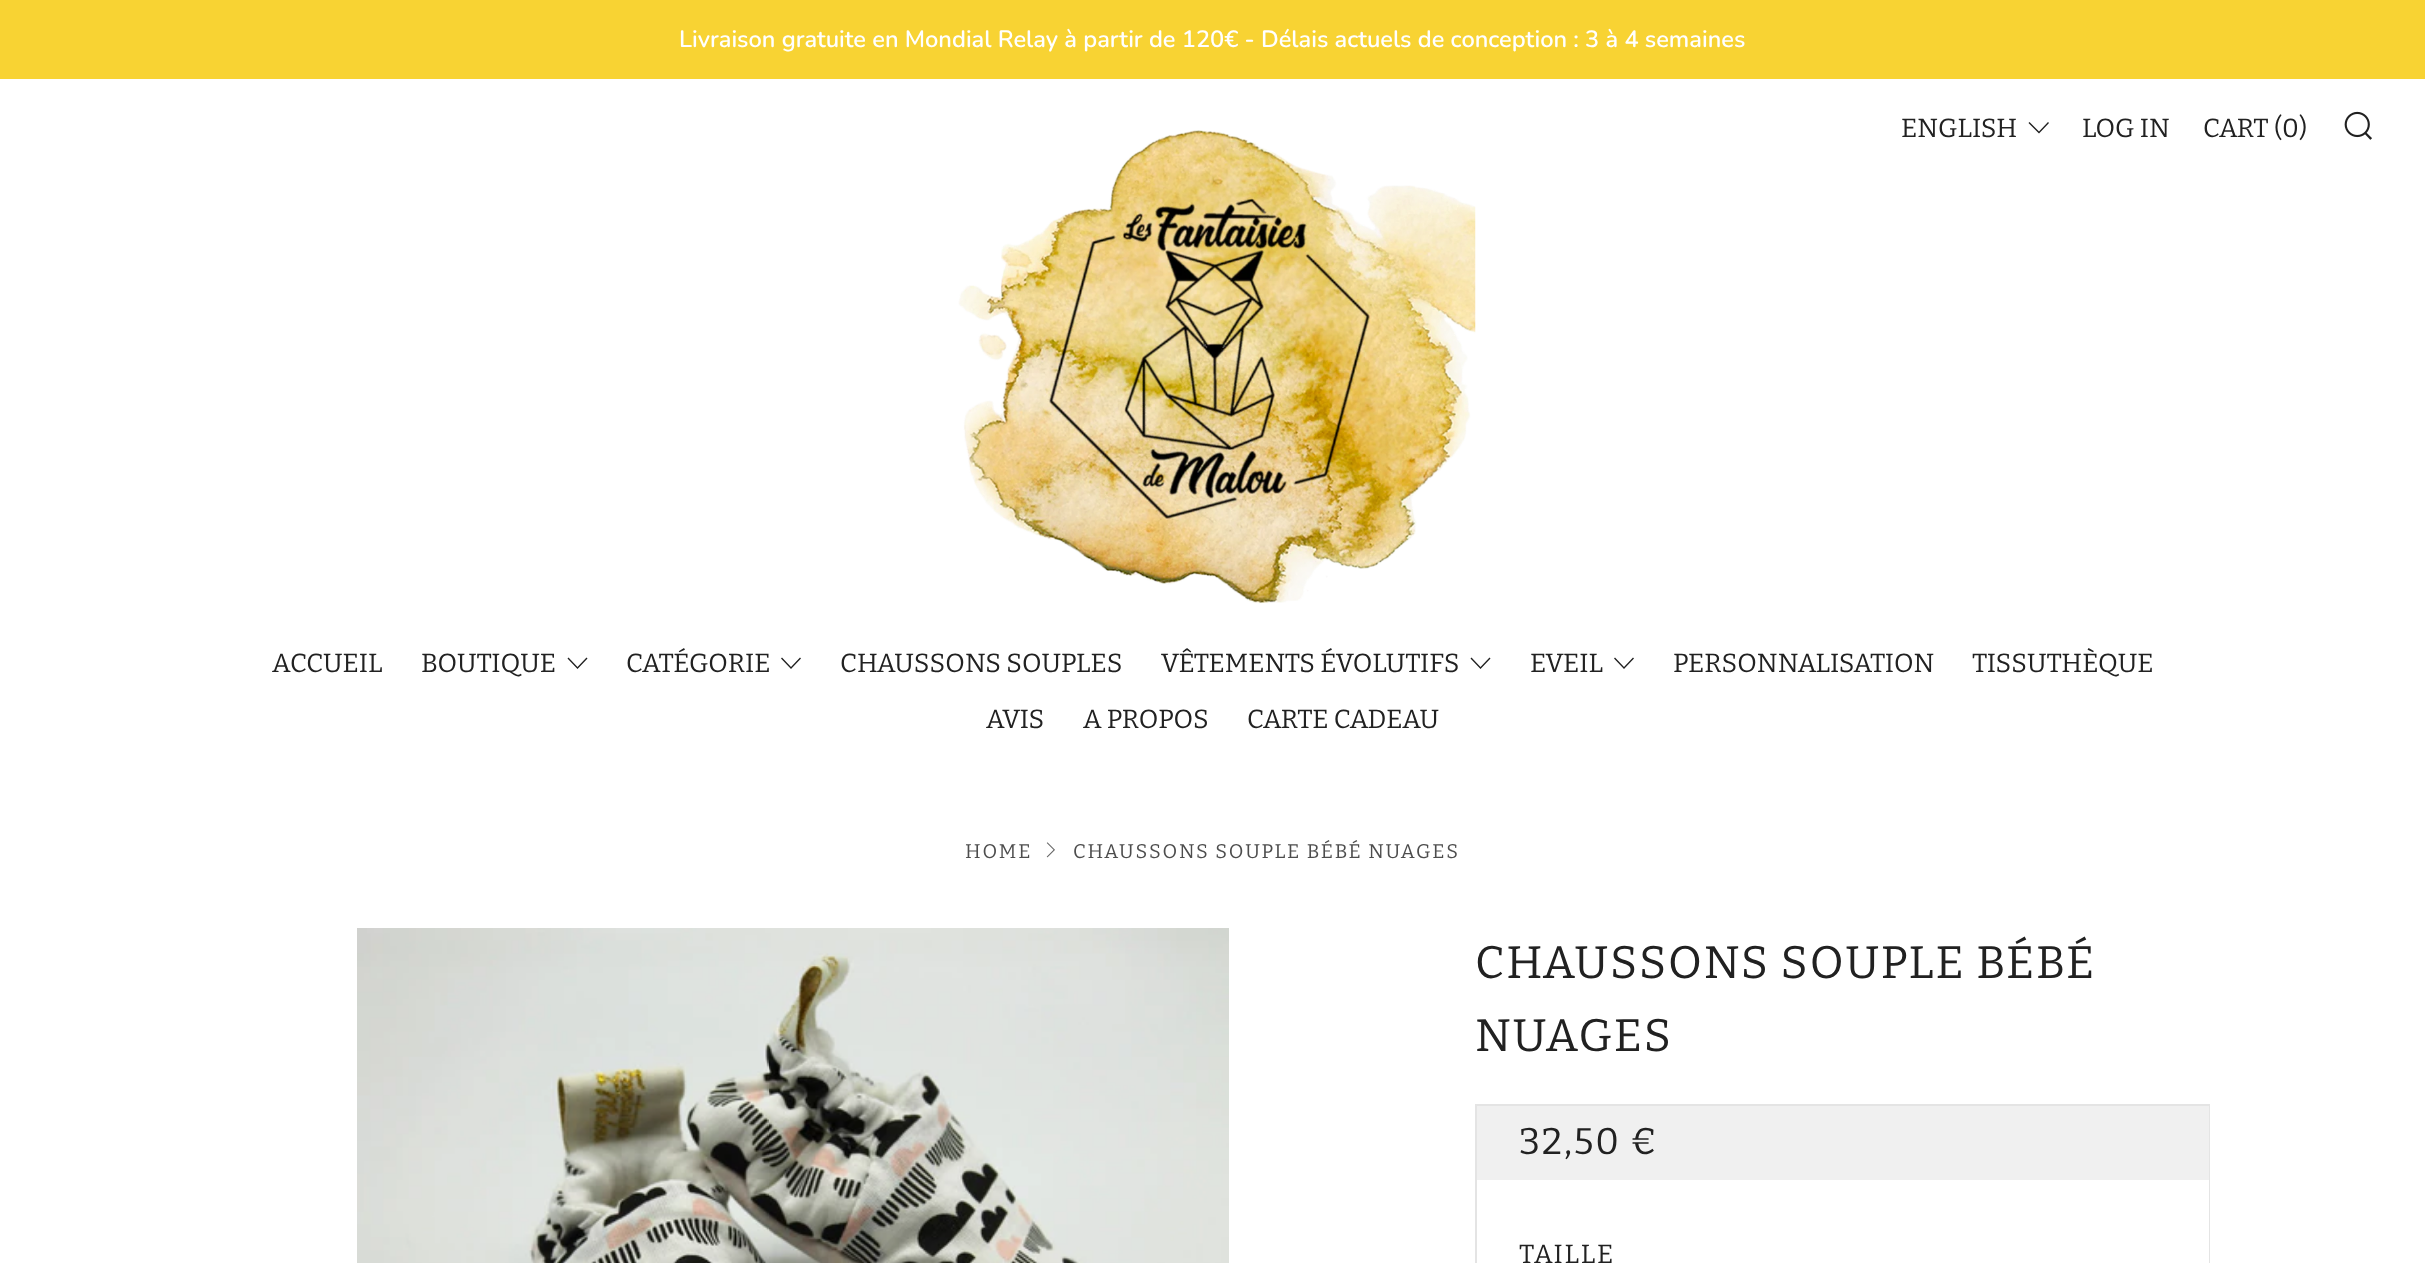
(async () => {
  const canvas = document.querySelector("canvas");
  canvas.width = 2425;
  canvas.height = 1263;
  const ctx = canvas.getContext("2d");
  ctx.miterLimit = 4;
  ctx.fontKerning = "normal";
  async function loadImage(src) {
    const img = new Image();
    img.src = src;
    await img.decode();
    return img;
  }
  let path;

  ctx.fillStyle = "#ffffff";
  ctx.fillRect(0, 0, 2425, 1263);
  ctx.fillStyle = "#f8d333";
  ctx.fillRect(0, 0, 2425, 79);
  ctx.fillStyle = "#212121";
  path = new Path2D("M2029.5 122L2028.5 123L2039 133.5L2049 123L2048 122L2039 131.5Z");
  ctx.fill(path);
  ctx.drawImage(await loadImage("img/1.png"), 2344, 111, 28, 29);
  path = new Path2D("M568.5 657.5L567.5 658.5L577.5 669L587.5 658.5L586.5 657.5L577.5 667Z");
  ctx.fill(path);
  path = new Path2D("M782 657.5L781 658.5L791 669L801 658.5L800 657.5L791 667Z");
  ctx.fill(path);
  path = new Path2D("M1471.5 657.5L1470.5 658.5L1480.5 669L1490.5 658.5L1489.5 657.5L1480.5 667Z");
  ctx.fill(path);
  path = new Path2D("M1615 657.5L1614 658.5L1624 669L1634 658.5L1633 657.5L1624 667Z");
  ctx.fill(path);
  ctx.drawImage(await loadImage("img/2.png"), 958, 130, 518, 474);
  ctx.drawImage(await loadImage("img/3.png"), 1046, 842, 9, 16);
  ctx.drawImage(await loadImage("img/4.png"), 357, 928, 872, 335);
  ctx.strokeStyle = "#e4e4e4";
  ctx.lineWidth = 2;
  ctx.strokeRect(1476, 1105, 733, 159);
  ctx.fillStyle = "#f0f0f0";
  ctx.fillRect(1477, 1106, 732, 74);
  ctx.fillStyle = "#ffffff";
  ctx.fillRect(2208, 1180, 1, 83);
  ctx.font = "600 23.6px Nunito";
  ctx.fillText("Livraison gratuite en Mondial Relay à partir de 120€ - Délais actuels de conception : 3 à 4 semaines", 679, 47);
  ctx.font = "26.25px Bitter";
  ctx.fillStyle = "#212121";
  for (const [text, x, y] of [
    ["ENGLISH", 1901, 137],
    ["LOG IN", 2082, 137],
    ["CART (0)", 2203, 137],
    ["ACCUEIL", 272, 672],
    ["BOUTIQUE", 421, 672],
    ["CATÉGORIE", 626, 672],
    ["CHAUSSONS SOUPLES", 840, 672],
    ["VÊTEMENTS ÉVOLUTIFS", 1161, 672],
    ["EVEIL", 1530, 672],
    ["PERSONNALISATION", 1673, 672],
    ["TISSUTHÈQUE", 1972, 672],
    ["AVIS", 986, 728],
    ["A PROPOS", 1083, 728],
    ["CARTE CADEAU", 1247, 728],
  ]) {
    ctx.fillText(text, x, y);
  }
  ctx.letterSpacing = "1.75px";
  ctx.font = "19.7px Bitter";
  ctx.fillStyle = "#4d4d4d";
  ctx.fillText("HOME", 965, 858);
  ctx.fillText("CHAUSSONS SOUPLE BÉBÉ NUAGES", 1073, 858);
  ctx.font = "45.5px Bitter";
  ctx.fillStyle = "#212121";
  ctx.fillText("CHAUSSONS SOUPLE BÉBÉ", 1475, 978);
  ctx.fillText("NUAGES", 1475, 1051);
  ctx.font = "37px Bitter";
  ctx.fillText("32,50 €", 1519, 1154);
  ctx.font = "26.25px Bitter";
  ctx.fillText("TAILLE", 1519, 1263);
})();
